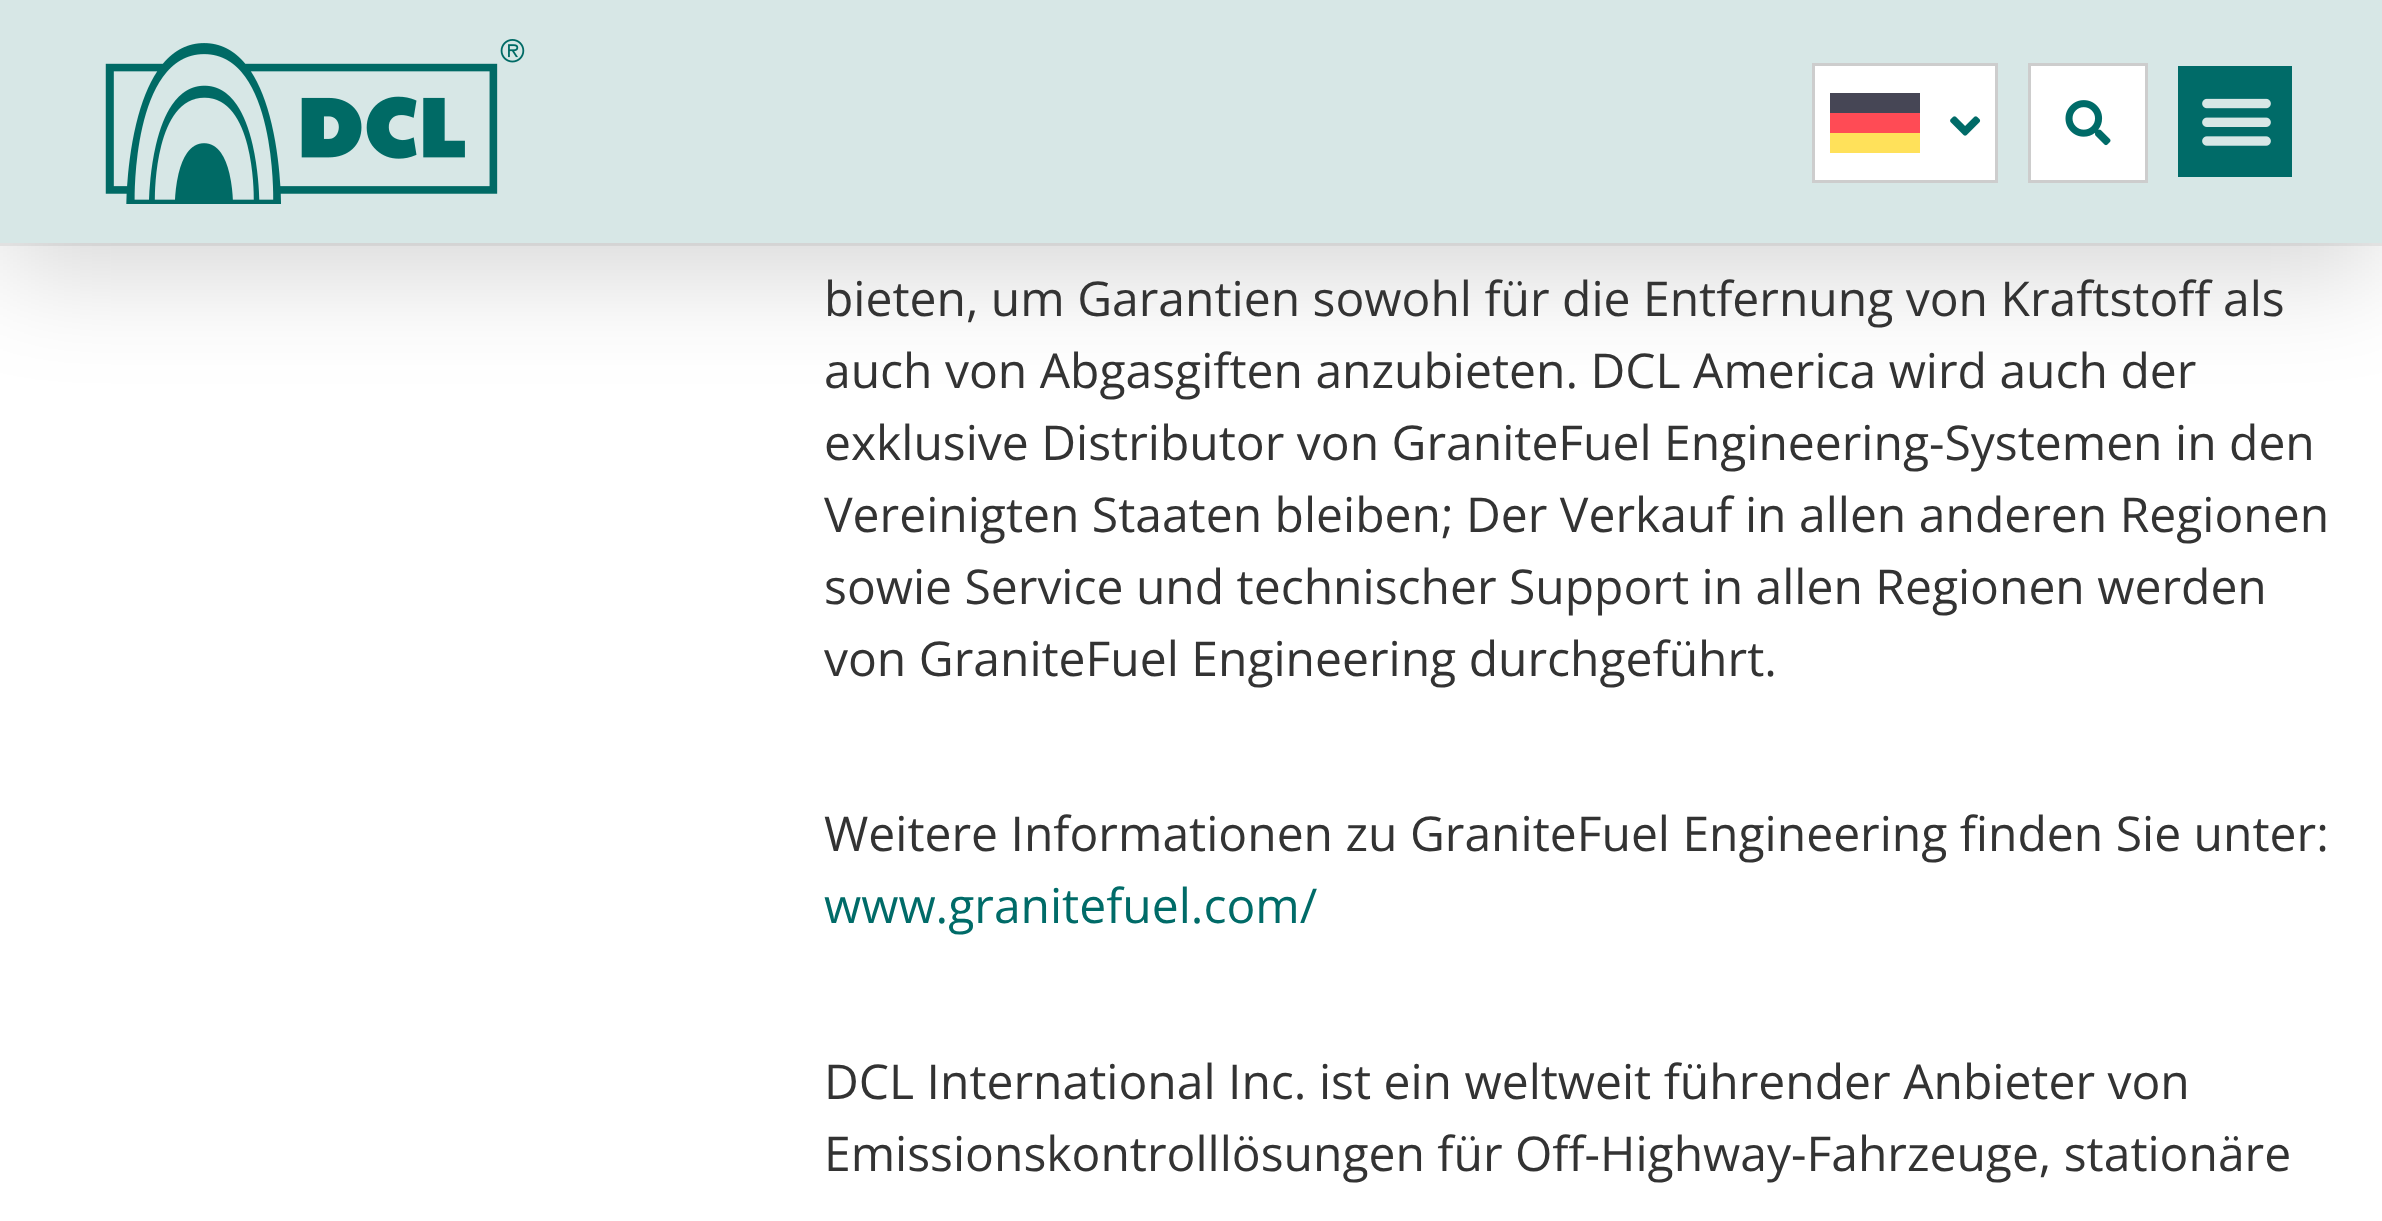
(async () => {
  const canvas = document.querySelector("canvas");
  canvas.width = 2382;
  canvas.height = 1221;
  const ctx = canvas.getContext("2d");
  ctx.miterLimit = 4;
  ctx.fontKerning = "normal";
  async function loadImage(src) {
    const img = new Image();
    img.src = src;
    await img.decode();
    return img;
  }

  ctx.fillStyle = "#ffffff";
  ctx.fillRect(0, 0, 2382, 1221);
  ctx.strokeStyle = "rgba(0, 0, 0, 0.06)";
  ctx.lineWidth = 3;
  ctx.strokeRect(-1.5, -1.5, 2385, 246);
  ctx.fillStyle = "rgba(0, 0, 0, 0.16)";
  ctx.filter = "blur(54px)";
  ctx.beginPath();
  ctx.rect(0, 30, 2382, 243);
  ctx.fill();
  ctx.filter = "none";
  ctx.fillStyle = "#d7e7e6";
  ctx.fillRect(0, 0, 2382, 243);
  ctx.drawImage(await loadImage("img/1.png"), 105, 39, 420, 165);
  ctx.fillStyle = "#ffffff";
  ctx.beginPath();
  ctx.rect(1813.5, 64.5, 183, 117);
  ctx.fill();
  ctx.strokeStyle = "#cdcdcd";
  ctx.stroke();
  for (const [x, y, w, h, color] of [
    [1830, 113, 90, 20, "#ff4b55"],
    [1830, 133, 90, 20, "#ffe15a"],
    [1830, 93, 90, 20, "#464655"],
  ]) {
    ctx.fillStyle = color;
    ctx.fillRect(x, y, w, h);
  }
  ctx.drawImage(await loadImage("img/2.png"), 1950, 116, 31, 20);
  ctx.strokeRect(2029.5, 64.5, 117, 117);
  ctx.fillStyle = "#ffffff";
  ctx.fillRect(2031, 66, 114, 114);
  ctx.drawImage(await loadImage("img/3.png"), 2065, 100, 46, 46);
  ctx.fillStyle = "#006b68";
  ctx.fillRect(2178, 66, 114, 111);
  ctx.drawImage(await loadImage("img/4.png"), 2202, 98, 69, 48);
  ctx.font = "48px Open Sans";
  ctx.fillStyle = "#333333";
  for (const [text, x, y] of [
    ["bieten, um Garantien sowohl für die Entfernung von Kraftstoff als", 824, 316],
    ["auch von Abgasgiften anzubieten. DCL America wird auch der", 824, 388],
    ["exklusive Distributor von GraniteFuel Engineering-Systemen in den", 824, 460],
    ["Vereinigten Staaten bleiben; Der Verkauf in allen anderen Regionen", 824, 532],
    ["sowie Service und technischer Support in allen Regionen werden", 824, 604],
    ["von GraniteFuel Engineering durchgeführt.", 824, 676],
    ["Weitere Informationen zu GraniteFuel Engineering finden Sie unter:", 824, 851],
  ]) {
    ctx.fillText(text, x, y);
  }
  ctx.fillStyle = "#006b68";
  ctx.fillText("www.granitefuel.com/", 824, 923);
  ctx.fillStyle = "#333333";
  ctx.fillText("DCL International Inc. ist ein weltweit führender Anbieter von", 824, 1099);
  ctx.fillText("Emissionskontrolllösungen für Off-Highway-Fahrzeuge, stationäre", 824, 1171);
})();
